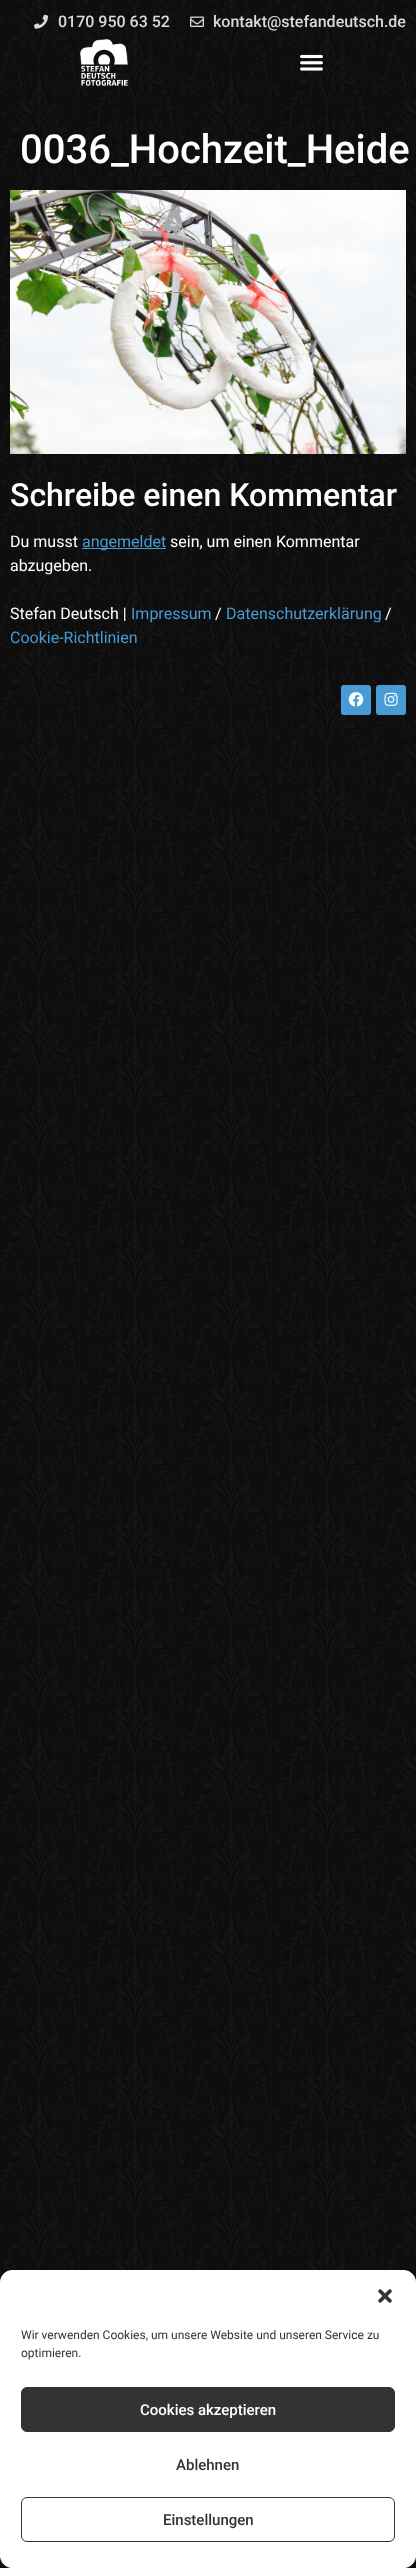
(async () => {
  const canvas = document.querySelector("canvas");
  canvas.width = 416;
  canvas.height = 2568;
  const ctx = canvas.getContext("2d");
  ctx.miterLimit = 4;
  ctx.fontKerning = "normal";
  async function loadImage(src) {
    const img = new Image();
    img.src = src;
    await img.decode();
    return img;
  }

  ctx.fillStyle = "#ffffff";
  ctx.fillRect(0, 0, 416, 2568);
  ctx.drawImage(await loadImage("img/1.png"), 0, 0, 416, 2568);
  ctx.drawImage(await loadImage("img/2.png"), 34, 14, 14, 15);
  ctx.drawImage(await loadImage("img/3.png"), 190, 16, 14, 11);
  ctx.drawImage(await loadImage("img/4.png"), 80, 39, 48, 47);
  ctx.drawImage(await loadImage("img/5.png"), 300, 54, 23, 17);
  ctx.drawImage(await loadImage("img/6.png"), 10, 190, 396, 264);
  ctx.fillStyle = "#499bd5";
  ctx.fillRect(82, 548, 84, 1);
  ctx.beginPath();
  ctx.roundRect(341, 685, 30, 30, 3);
  ctx.fill();
  ctx.drawImage(await loadImage("img/7.png"), 348, 692, 16, 15);
  ctx.beginPath();
  ctx.roundRect(376, 685, 30, 30, 3);
  ctx.fill();
  ctx.drawImage(await loadImage("img/8.png"), 384, 692, 14, 14);
  ctx.fillStyle = "#ffffff";
  ctx.beginPath();
  ctx.roundRect(0.5, 2270.5, 415, 297, 11.5);
  ctx.fill();
  ctx.strokeStyle = "#ffffff";
  ctx.stroke();
  ctx.drawImage(await loadImage("img/9.png"), 378, 2289, 14, 14);
  ctx.fillStyle = "#333333";
  ctx.beginPath();
  ctx.roundRect(21.5, 2387.5, 373, 44, 5.5);
  ctx.fill();
  ctx.strokeStyle = "#333333";
  ctx.stroke();
  ctx.beginPath();
  ctx.roundRect(21.5, 2497.5, 373, 44, 5.5);
  ctx.stroke();
  ctx.font = "500 16px Roboto";
  ctx.fillStyle = "#dadada";
  ctx.fillText("0170 950 63 52", 58, 27);
  ctx.fillText("kontakt@stefandeutsch.de", 213, 27);
  ctx.font = "500 40px Roboto";
  ctx.fillStyle = "#ffffff";
  ctx.fillText("0036_Hochzeit_Heide", 20, 163);
  ctx.font = "500 32px Roboto";
  ctx.fillText("Schreibe einen Kommentar", 10, 506);
  ctx.font = "16px Roboto";
  ctx.fillText("Du musst", 10, 547);
  ctx.fillStyle = "#499bd5";
  ctx.fillText("angemeldet", 82, 547);
  ctx.fillStyle = "#ffffff";
  for (const [text, x, y] of [
    ["sein, um einen Kommentar", 170, 547],
    ["abzugeben.", 10, 571],
    ["Stefan Deutsch |", 10, 619],
  ]) {
    ctx.fillText(text, x, y);
  }
  ctx.fillStyle = "#499bd5";
  ctx.fillText("Impressum", 131, 619);
  ctx.fillStyle = "#ffffff";
  ctx.fillText("/", 215, 619);
  ctx.fillStyle = "#499bd5";
  ctx.fillText("Datenschutzerklärung", 226, 619);
  ctx.fillStyle = "#ffffff";
  ctx.fillText("/", 385, 619);
  ctx.fillStyle = "#499bd5";
  ctx.fillText("Cookie-Richtlinien", 10, 643);
  ctx.font = "12px Roboto";
  ctx.fillStyle = "#333333";
  ctx.fillText("Wir verwenden Cookies, um unsere Website und unseren Service zu", 21, 2339);
  ctx.fillText("optimieren.", 21, 2357);
  ctx.font = "500 15px Roboto";
  ctx.fillStyle = "#ffffff";
  ctx.fillText("Cookies akzeptieren", 140, 2415);
  ctx.fillStyle = "#333333";
  ctx.fillText("Ablehnen", 176, 2470);
  ctx.fillText("Einstellungen", 163, 2525);
})();
